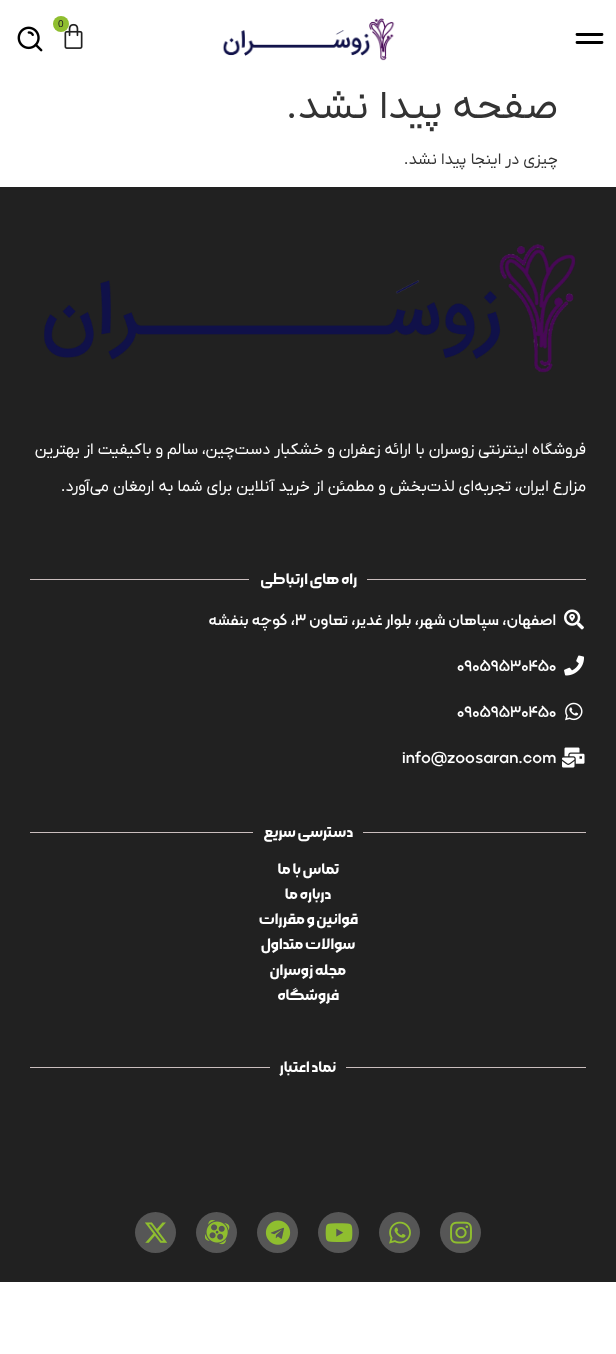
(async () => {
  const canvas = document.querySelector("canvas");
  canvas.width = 616;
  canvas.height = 1354;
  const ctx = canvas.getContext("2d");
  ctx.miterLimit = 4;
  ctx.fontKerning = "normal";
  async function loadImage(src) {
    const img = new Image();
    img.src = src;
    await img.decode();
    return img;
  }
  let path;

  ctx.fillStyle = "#ffffff";
  ctx.fillRect(0, 0, 616, 1354);
  ctx.drawImage(await loadImage("img/1.png"), 222, 18, 173, 43);
  ctx.drawImage(await loadImage("img/2.png"), 64, 23, 19, 26);
  ctx.fillStyle = "#8fbe2f";
  ctx.beginPath();
  ctx.arc(61, 24, 8, 0, Math.PI * 2);
  ctx.fill();
  ctx.drawImage(await loadImage("img/3.png"), 17, 26, 26, 26);
  path = new Path2D("M577 42.5H602M577 34.5H602");
  ctx.strokeStyle = "#000000";
  ctx.lineWidth = 2.8;
  ctx.lineCap = "round";
  ctx.lineJoin = "round";
  ctx.stroke(path);
  ctx.fillStyle = "#212121";
  ctx.fillRect(0, 187, 616, 1095);
  ctx.drawImage(await loadImage("img/4.png"), 44, 244, 532, 129);
  ctx.fillStyle = "#cabebe";
  ctx.fillRect(367, 579, 219, 1);
  ctx.fillRect(30, 579, 219, 1);
  ctx.drawImage(await loadImage("img/5.png"), 564, 609, 20, 21);
  ctx.drawImage(await loadImage("img/6.png"), 564, 655, 20, 21);
  ctx.drawImage(await loadImage("img/7.png"), 565, 702, 18, 19);
  ctx.drawImage(await loadImage("img/8.png"), 562, 747, 23, 21);
  for (const [x, y, w, h, color] of [
    [363, 832, 223, 1, "#cabebe"],
    [30, 832, 223, 1, "#cabebe"],
    [346, 1067, 240, 1, "#cabebe"],
    [30, 1067, 240, 1, "#cabebe"],
  ]) {
    ctx.fillStyle = color;
    ctx.fillRect(x, y, w, h);
  }
  ctx.fillStyle = "#565656";
  ctx.beginPath();
  ctx.arc(460.5, 1232.5, 20.5, 0, Math.PI * 2);
  ctx.fill();
  ctx.drawImage(await loadImage("img/9.png"), 450, 1221, 22, 23);
  ctx.beginPath();
  ctx.arc(399.5, 1232.5, 20.5, 0, Math.PI * 2);
  ctx.fill();
  ctx.drawImage(await loadImage("img/10.png"), 389, 1221, 22, 23);
  ctx.beginPath();
  ctx.arc(338.5, 1232.5, 20.5, 0, Math.PI * 2);
  ctx.fill();
  ctx.drawImage(await loadImage("img/11.png"), 325, 1223, 28, 19);
  ctx.beginPath();
  ctx.arc(277.5, 1232.5, 20.5, 0, Math.PI * 2);
  ctx.fill();
  ctx.drawImage(await loadImage("img/12.png"), 265, 1220, 26, 25);
  ctx.beginPath();
  ctx.arc(216.5, 1232.5, 20.5, 0, Math.PI * 2);
  ctx.fill();
  ctx.drawImage(await loadImage("img/13.png"), 205, 1220, 25, 25);
  ctx.beginPath();
  ctx.arc(155.5, 1232.5, 20.5, 0, Math.PI * 2);
  ctx.fill();
  ctx.drawImage(await loadImage("img/14.png"), 145, 1222, 23, 21);
  ctx.font = "10px Liberation Sans";
  ctx.fillStyle = "#212121";
  ctx.fillText("0", 58, 27);
  ctx.direction = "rtl";
  ctx.font = "40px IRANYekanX";
  ctx.fillStyle = "#333333";
  ctx.fillText("صفحه پیدا نشد.", 558, 118);
  ctx.font = "16px IRANYekanX";
  ctx.fillText("چیزی در اینجا پیدا نشد.", 558, 164);
  ctx.fillStyle = "#ffffff";
  ctx.fillText("فروشگاه اینترنتی زوسران با ارائه زعفران و خشکبار دست‌چین، سالم و باکیفیت از بهترین", 586, 454);
  ctx.fillText("مزارع ایران، تجربه‌ای لذت‌بخش و مطمئن از خرید آنلاین برای شما به ارمغان می‌آورد.", 586, 491);
  ctx.font = "600 16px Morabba";
  ctx.fillText("راه های ارتباطی", 357, 584);
  ctx.font = "500 16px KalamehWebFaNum";
  ctx.fillText("اصفهان، سپاهان شهر، بلوار غدیر، تعاون", 556, 625);
  ctx.direction = "ltr";
  ctx.fillText("3", 295, 625);
  ctx.direction = "rtl";
  ctx.fillText("، کوچه بنفشه", 295, 625);
  ctx.direction = "ltr";
  for (const [text, x, y] of [
    ["09059530450", 457, 671],
    ["09059530450", 457, 717],
    ["info@zoosaran.com", 402, 763],
  ]) {
    ctx.fillText(text, x, y);
  }
  ctx.direction = "rtl";
  ctx.font = "600 16px Morabba";
  for (const [text, x, y] of [
    ["دسترسی سریع", 353, 837],
    ["تماس با ما", 339, 874],
    ["درباره ما", 331, 899],
    ["قوانین و مقررات", 358, 924],
    ["سوالات متداول", 355, 949],
    ["مجله زوسران", 346, 975],
    ["فروشگاه", 339, 1000],
    ["نماد اعتبار", 336, 1072],
  ]) {
    ctx.fillText(text, x, y);
  }
})();
